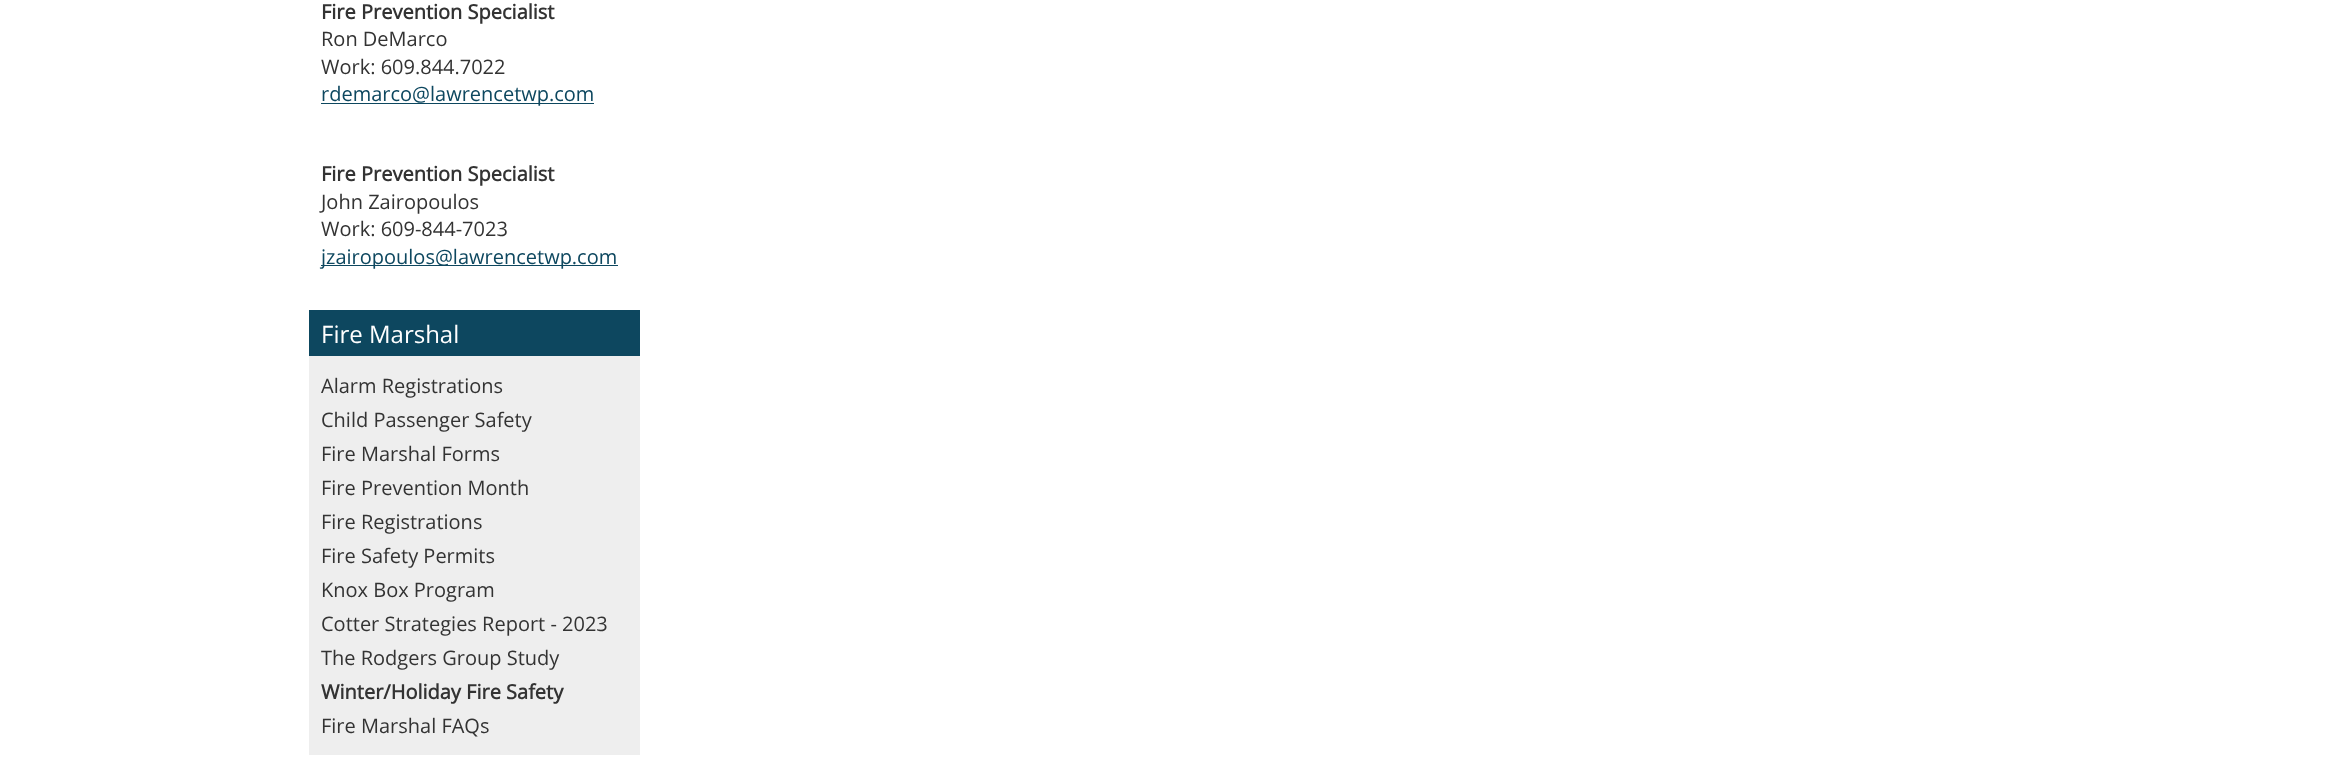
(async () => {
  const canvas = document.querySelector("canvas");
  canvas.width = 2326;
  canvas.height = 765;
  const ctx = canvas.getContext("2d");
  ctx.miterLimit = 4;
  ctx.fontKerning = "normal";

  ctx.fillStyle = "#ffffff";
  ctx.fillRect(0, 0, 2326, 765);
  for (const [x, y, w, h, color] of [
    [321, 103, 273, 1, "#0d475f"],
    [321, 265, 297, 1, "#0d475f"],
    [309, 310, 331, 46, "#0d475f"],
    [309, 356, 331, 399, "#eeeeee"],
  ]) {
    ctx.fillStyle = color;
    ctx.fillRect(x, y, w, h);
  }
  ctx.font = "bold 20px Open Sans";
  ctx.fillStyle = "#333333";
  ctx.fillText("Fire Prevention Specialist", 321, 19);
  ctx.font = "20px Open Sans";
  ctx.fillText("Ron DeMarco", 321, 46);
  ctx.fillText("Work: 609.844.7022", 321, 74);
  ctx.fillStyle = "#0d475f";
  ctx.fillText("rdemarco@lawrencetwp.com", 321, 101);
  ctx.font = "bold 20px Open Sans";
  ctx.fillStyle = "#333333";
  ctx.fillText("Fire Prevention Specialist", 321, 181);
  ctx.font = "20px Open Sans";
  ctx.fillText("John Zairopoulos", 321, 209);
  ctx.fillText("Work: 609-844-7023", 321, 236);
  ctx.fillStyle = "#0d475f";
  ctx.fillText("jzairopoulos@lawrencetwp.com", 321, 264);
  ctx.font = "24px Open Sans";
  ctx.fillStyle = "#ffffff";
  ctx.fillText("Fire Marshal", 321, 343);
  ctx.font = "20px Open Sans";
  ctx.fillStyle = "#333333";
  for (const [text, x, y] of [
    ["Alarm Registrations", 321, 393],
    ["Child Passenger Safety", 321, 427],
    ["Fire Marshal Forms", 321, 461],
    ["Fire Prevention Month", 321, 495],
    ["Fire Registrations", 321, 529],
    ["Fire Safety Permits", 321, 563],
    ["Knox Box Program", 321, 597],
    ["Cotter Strategies Report - 2023", 321, 631],
    ["The Rodgers Group Study", 321, 665],
  ]) {
    ctx.fillText(text, x, y);
  }
  ctx.font = "bold 20px Open Sans";
  ctx.fillText("Winter/Holiday Fire Safety", 321, 699);
  ctx.font = "20px Open Sans";
  ctx.fillText("Fire Marshal FAQs", 321, 733);
})();
